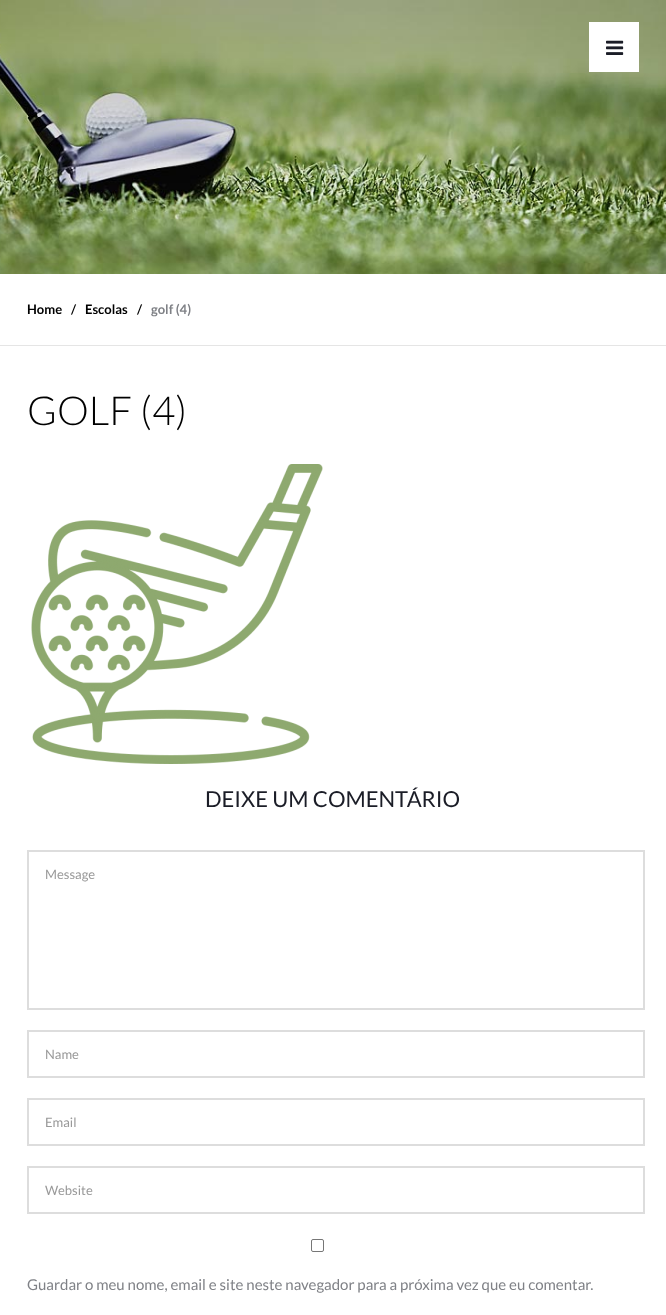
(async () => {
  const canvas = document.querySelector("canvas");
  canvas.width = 666;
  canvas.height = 1315;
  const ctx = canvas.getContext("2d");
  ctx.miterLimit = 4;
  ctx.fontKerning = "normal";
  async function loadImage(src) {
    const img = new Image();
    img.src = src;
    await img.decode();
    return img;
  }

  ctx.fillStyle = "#ffffff";
  ctx.fillRect(0, 0, 666, 1315);
  ctx.drawImage(await loadImage("img/1.png"), 0, 0, 666, 274);
  ctx.fillRect(589, 22, 50, 50);
  ctx.drawImage(await loadImage("img/2.png"), 606, 40, 18, 15);
  ctx.fillStyle = "#e5e5e5";
  ctx.fillRect(0, 345, 666, 1);
  ctx.drawImage(await loadImage("img/3.png"), 31, 464, 292, 300);
  ctx.strokeStyle = "#dddddd";
  ctx.lineWidth = 2;
  ctx.strokeRect(28, 851, 616, 158);
  ctx.strokeRect(28, 1031, 616, 46);
  ctx.strokeRect(28, 1099, 616, 46);
  ctx.strokeRect(28, 1167, 616, 46);
  ctx.beginPath();
  ctx.roundRect(311.5, 1239.5, 12, 12, 1.5);
  ctx.strokeStyle = "#767676";
  ctx.lineWidth = 1;
  ctx.stroke();
  ctx.font = "bold 13px Lato";
  ctx.fillStyle = "#000000";
  for (const [text, x, y] of [
    ["Home", 27, 314],
    ["/", 71, 314],
    ["Escolas", 85, 314],
    ["/", 137, 314],
  ]) {
    ctx.fillText(text, x, y);
  }
  ctx.fillStyle = "#7f8186";
  ctx.fillText("golf (4)", 151, 314);
  ctx.font = "300 40px Lato";
  ctx.fillStyle = "#000000";
  ctx.fillText("GOLF (4)", 27, 425);
  ctx.font = "22px Lato";
  ctx.fillStyle = "#1b1d27";
  ctx.fillText("DEIXE UM COMENTÁRIO", 205, 807);
  ctx.font = "13px Lato";
  ctx.fillStyle = "#999999";
  for (const [text, x, y] of [
    ["Message", 45, 879],
    ["Name", 45, 1059],
    ["Email", 45, 1127],
    ["Website", 45, 1195],
  ]) {
    ctx.fillText(text, x, y);
  }
  ctx.font = "15px Lato";
  ctx.fillStyle = "#7f8186";
  ctx.fillText("Guardar o meu nome, email e site neste navegador para a próxima vez que eu comentar.", 27, 1290);
})();
